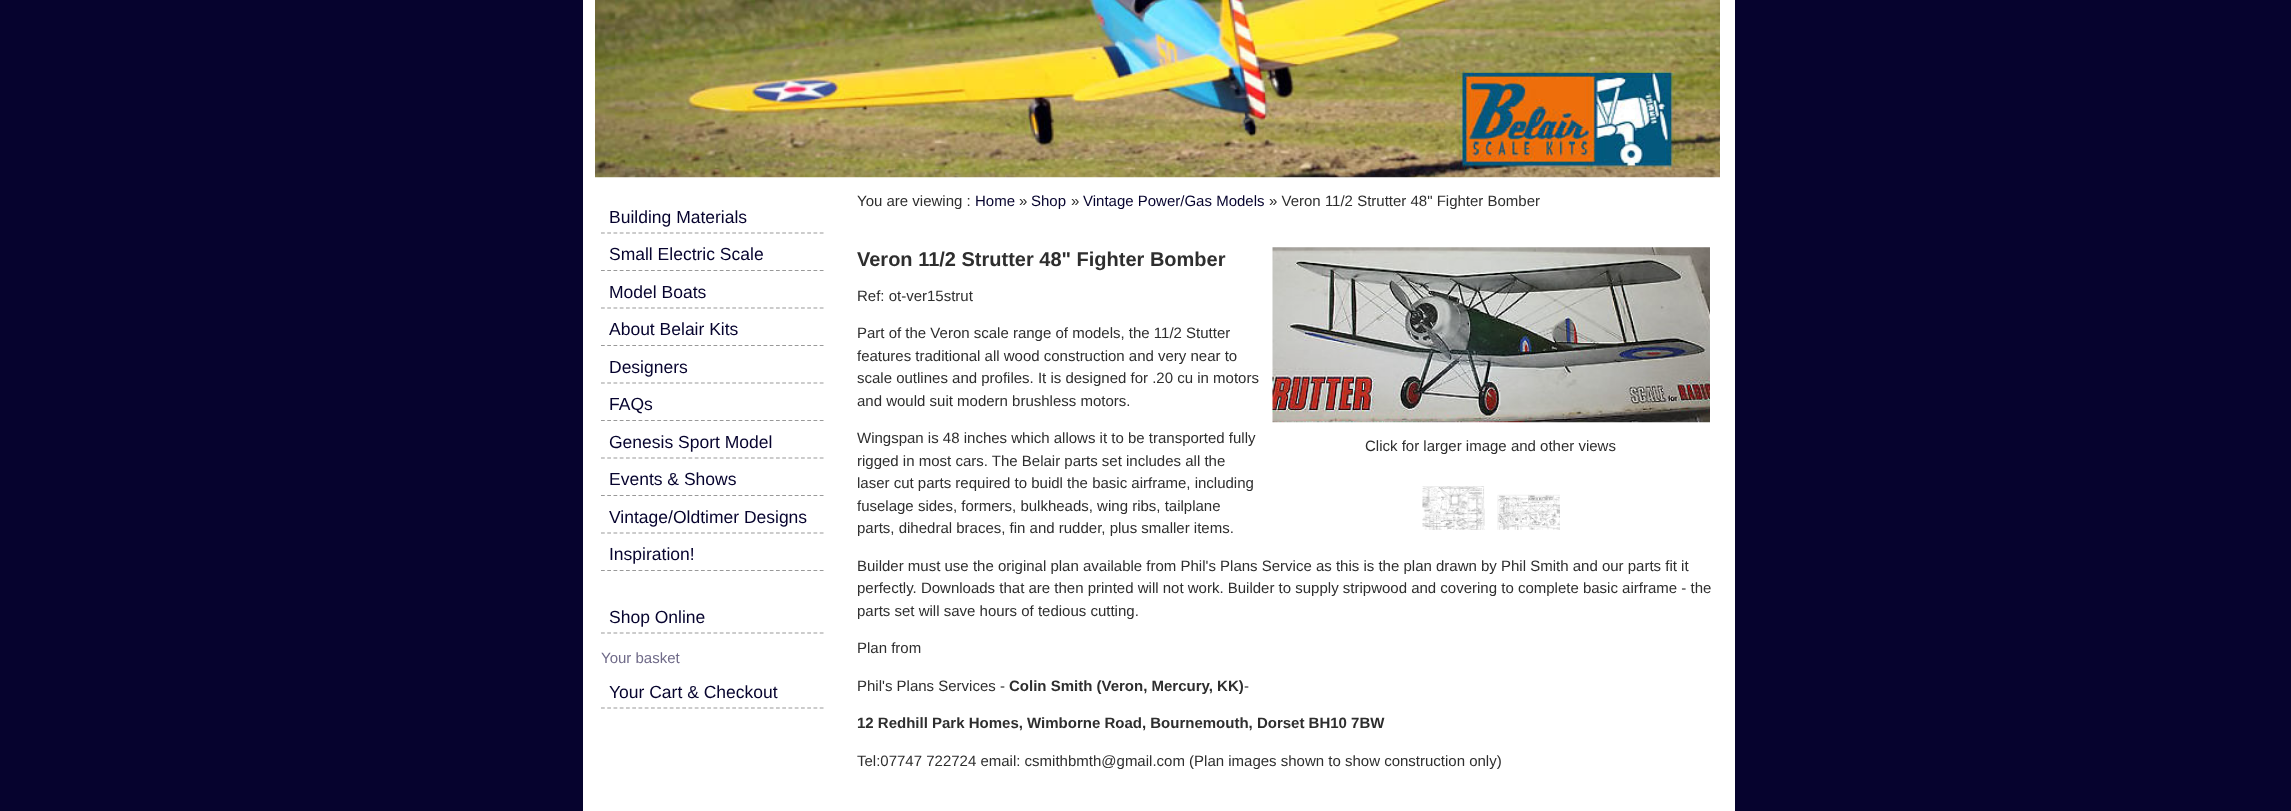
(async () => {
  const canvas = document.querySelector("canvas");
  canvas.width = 2291;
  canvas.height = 811;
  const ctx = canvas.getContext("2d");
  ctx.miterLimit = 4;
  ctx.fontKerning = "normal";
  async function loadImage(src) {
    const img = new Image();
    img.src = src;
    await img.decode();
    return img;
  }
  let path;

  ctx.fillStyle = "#06032e";
  ctx.fillRect(0, 0, 2291, 811);
  ctx.fillStyle = "#ffffff";
  ctx.fillRect(583, 0, 1152, 811);
  ctx.drawImage(await loadImage("img/1.png"), 595, 0, 1125, 178);
  path = new Path2D("M601 233H824");
  ctx.strokeStyle = "#999999";
  ctx.lineWidth = 1.2;
  ctx.setLineDash([3.75, 2.5]);
  ctx.stroke(path);
  path = new Path2D("M601 270.5H824");
  ctx.stroke(path);
  path = new Path2D("M601 308H824");
  ctx.stroke(path);
  path = new Path2D("M601 345.5H824");
  ctx.stroke(path);
  path = new Path2D("M601 383H824");
  ctx.stroke(path);
  path = new Path2D("M601 420.5H824");
  ctx.stroke(path);
  path = new Path2D("M601 458H824");
  ctx.stroke(path);
  path = new Path2D("M601 495.5H824");
  ctx.stroke(path);
  path = new Path2D("M601 533H824");
  ctx.stroke(path);
  path = new Path2D("M601 570.5H824");
  ctx.stroke(path);
  path = new Path2D("M601 633H824");
  ctx.stroke(path);
  path = new Path2D("M601 708H824");
  ctx.stroke(path);
  ctx.drawImage(await loadImage("img/2.png"), 1272, 247, 438, 176);
  ctx.drawImage(await loadImage("img/3.png"), 1422, 486, 63, 44);
  ctx.drawImage(await loadImage("img/4.png"), 1497, 494, 63, 36);
  ctx.font = "17.5px Liberation Sans";
  ctx.fillStyle = "#06032e";
  for (const [text, x, y] of [
    ["Building Materials", 609, 223],
    ["Small Electric Scale", 609, 260],
    ["Model Boats", 609, 298],
    ["About Belair Kits", 609, 335],
    ["Designers", 609, 373],
    ["FAQs", 609, 410],
    ["Genesis Sport Model", 609, 448],
    ["Events & Shows", 609, 485],
    ["Vintage/Oldtimer Designs", 609, 523],
    ["Inspiration!", 609, 560],
    ["Shop Online", 609, 623],
  ]) {
    ctx.fillText(text, x, y);
  }
  ctx.font = "15px Liberation Sans";
  ctx.fillStyle = "#706b89";
  ctx.fillText("Your basket", 601, 663);
  ctx.font = "17.5px Liberation Sans";
  ctx.fillStyle = "#06032e";
  ctx.fillText("Your Cart & Checkout", 609, 698);
  ctx.font = "15px Liberation Sans";
  ctx.fillStyle = "#2e2e2e";
  ctx.fillText("You are viewing :", 857, 206);
  ctx.fillStyle = "#06032e";
  ctx.fillText("Home", 975, 206);
  ctx.fillStyle = "#2e2e2e";
  ctx.fillText("»", 1019, 206);
  ctx.fillStyle = "#06032e";
  ctx.fillText("Shop", 1031, 206);
  ctx.fillStyle = "#2e2e2e";
  ctx.fillText("»", 1071, 206);
  ctx.fillStyle = "#06032e";
  ctx.fillText("Vintage Power/Gas Models", 1083, 206);
  ctx.fillStyle = "#2e2e2e";
  ctx.fillText("» Veron 11/2 Strutter 48\" Fighter Bomber", 1269, 206);
  ctx.font = "bold 20px Liberation Sans";
  ctx.fillText("Veron 11/2 Strutter 48\" Fighter Bomber", 857, 266);
  ctx.font = "15px Liberation Sans";
  for (const [text, x, y] of [
    ["Ref: ot-ver15strut", 857, 301],
    ["Part of the Veron scale range of models, the 11/2 Stutter", 857, 338],
    ["features traditional all wood construction and very near to", 857, 361],
    ["scale outlines and profiles. It is designed for .20 cu in motors", 857, 383],
    ["and would suit modern brushless motors.", 857, 406],
    ["Wingspan is 48 inches which allows it to be transported fully", 857, 443],
    ["rigged in most cars. The Belair parts set includes all the", 857, 466],
    ["laser cut parts required to buidl the basic airframe, including", 857, 488],
    ["fuselage sides, formers, bulkheads, wing ribs, tailplane", 857, 511],
    ["parts, dihedral braces, fin and rudder, plus smaller items.", 857, 533],
    ["Click for larger image and other views", 1365, 451],
    ["Builder must use the original plan available from Phil's Plans Service as this is the plan drawn by Phil Smith and our parts fit it", 857, 571],
    ["perfectly. Downloads that are then printed will not work. Builder to supply stripwood and covering to complete basic airframe - the", 857, 593],
    ["parts set will save hours of tedious cutting.", 857, 616],
    ["Plan from", 857, 653],
    ["Phil's Plans Services -", 857, 691],
  ]) {
    ctx.fillText(text, x, y);
  }
  ctx.font = "bold 15px Liberation Sans";
  ctx.fillText("Colin Smith (Veron, Mercury, KK)", 1009, 691);
  ctx.font = "15px Liberation Sans";
  ctx.fillText("-", 1244, 691);
  ctx.font = "bold 15px Liberation Sans";
  ctx.fillText("12 Redhill Park Homes, Wimborne Road, Bournemouth, Dorset BH10 7BW", 857, 728);
  ctx.font = "15px Liberation Sans";
  ctx.fillText("Tel:07747 722724 email: csmithbmth@gmail.com (Plan images shown to show construction only)", 857, 766);
})();
